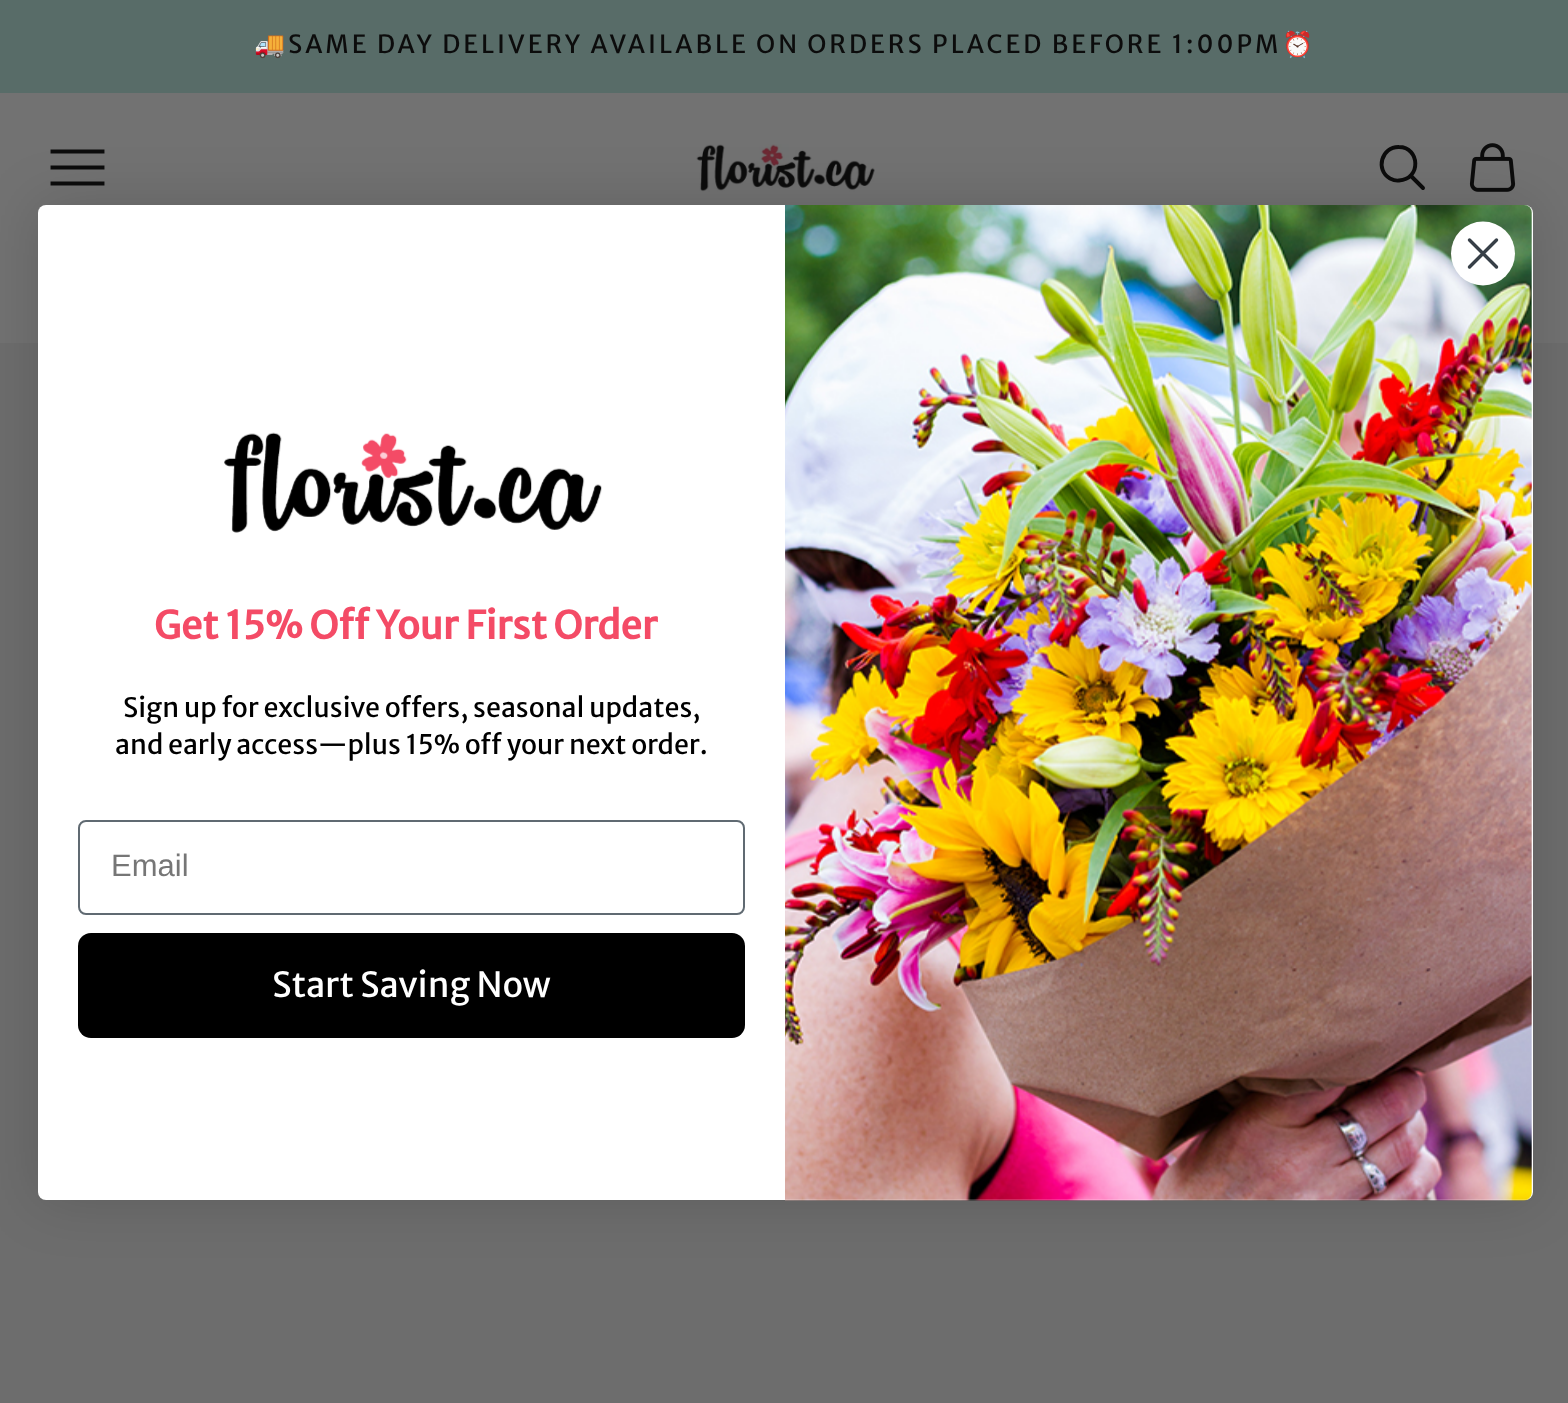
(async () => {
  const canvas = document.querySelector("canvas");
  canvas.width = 1568;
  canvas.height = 1403;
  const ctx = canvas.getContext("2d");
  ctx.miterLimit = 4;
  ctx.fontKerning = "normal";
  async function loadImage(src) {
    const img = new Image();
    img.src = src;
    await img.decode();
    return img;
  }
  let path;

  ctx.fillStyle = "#727272";
  ctx.fillRect(0, 0, 1568, 1403);
  ctx.fillStyle = "#586c68";
  ctx.fillRect(0, 0, 1568, 93);
  path = new Path2D("M52.5 183.5H102.5M52.5 167.5H102.5M52.5 151.5H102.5");
  ctx.strokeStyle = "#0c0c0c";
  ctx.lineWidth = 3.9;
  ctx.lineCap = "square";
  ctx.stroke(path);
  ctx.drawImage(await loadImage("img/1.png"), 696, 144, 179, 48);
  path = new Path2D("M1399 147C1381.5 146.5 1375 170 1390 178.5C1393 180 1396 181 1399 180.5C1421.5 179.5 1420 147 1399 147Z");
  ctx.lineCap = "butt";
  ctx.stroke(path);
  path = new Path2D("M1411.5 176.5L1423 188");
  ctx.lineCap = "round";
  ctx.stroke(path);
  ctx.drawImage(await loadImage("img/2.png"), 1469, 143, 47, 49);
  ctx.fillStyle = "#6d6d6d";
  ctx.fillRect(0, 343, 1568, 1060);
  ctx.fillStyle = "rgba(0, 0, 0, 0.15)";
  ctx.filter = "blur(28.5px)";
  ctx.beginPath();
  ctx.roundRect(38, 205, 1495, 995, 8);
  ctx.fill();
  ctx.filter = "none";
  ctx.fillStyle = "#ffffff";
  ctx.beginPath();
  ctx.roundRect(38, 205, 1495, 995, 8);
  ctx.fill();
  ctx.drawImage(await loadImage("img/4.png"), 785, 205, 747, 996);
  ctx.beginPath();
  ctx.arc(1483, 253.5, 32, 0, Math.PI * 2);
  ctx.fill();
  path = new Path2D("M1469.5 240L1496.5 267M1469.5 267L1496.5 240Z");
  ctx.strokeStyle = "#373f47";
  ctx.lineWidth = 3.4;
  ctx.lineJoin = "round";
  ctx.stroke(path);
  ctx.drawImage(await loadImage("img/3.png"), 224, 432, 378, 101);
  ctx.beginPath();
  ctx.roundRect(79, 821, 665, 93, 7);
  ctx.strokeStyle = "#606a72";
  ctx.lineWidth = 2;
  ctx.lineJoin = "miter";
  ctx.stroke();
  ctx.fillStyle = "#000000";
  ctx.beginPath();
  ctx.roundRect(78, 933, 667, 105, 13);
  ctx.fill();
  ctx.letterSpacing = "3px";
  ctx.font = "25px Noto Color Emoji";
  ctx.fillStyle = "#0c0c0c";
  ctx.fillText("🚚", 254, 53);
  ctx.font = "25px Merriweather Sans";
  ctx.fillText("SAME DAY DELIVERY AVAILABLE ON ORDERS PLACED BEFORE 1:00PM", 288, 53);
  ctx.font = "25px Noto Color Emoji";
  ctx.fillText("⏰", 1282, 53);
  ctx.letterSpacing = "0px";
  ctx.font = "bold 38.25px Merriweather Sans";
  ctx.fillStyle = "#f44b66";
  ctx.fillText("Get 15% Off Your First Order", 154, 639);
  ctx.font = "26.8px Merriweather Sans";
  ctx.fillStyle = "#000000";
  ctx.fillText("Sign up for exclusive offers, seasonal updates,", 123, 717);
  ctx.fillText("and early access—plus 15% off your next order.", 115, 754);
  ctx.font = "31px Liberation Sans";
  ctx.fillStyle = "#767676";
  ctx.fillText("Email", 111, 876);
  ctx.font = "34.5px Merriweather Sans";
  ctx.fillStyle = "#ffffff";
  ctx.fillText("Start Saving Now", 272, 997);
})();
